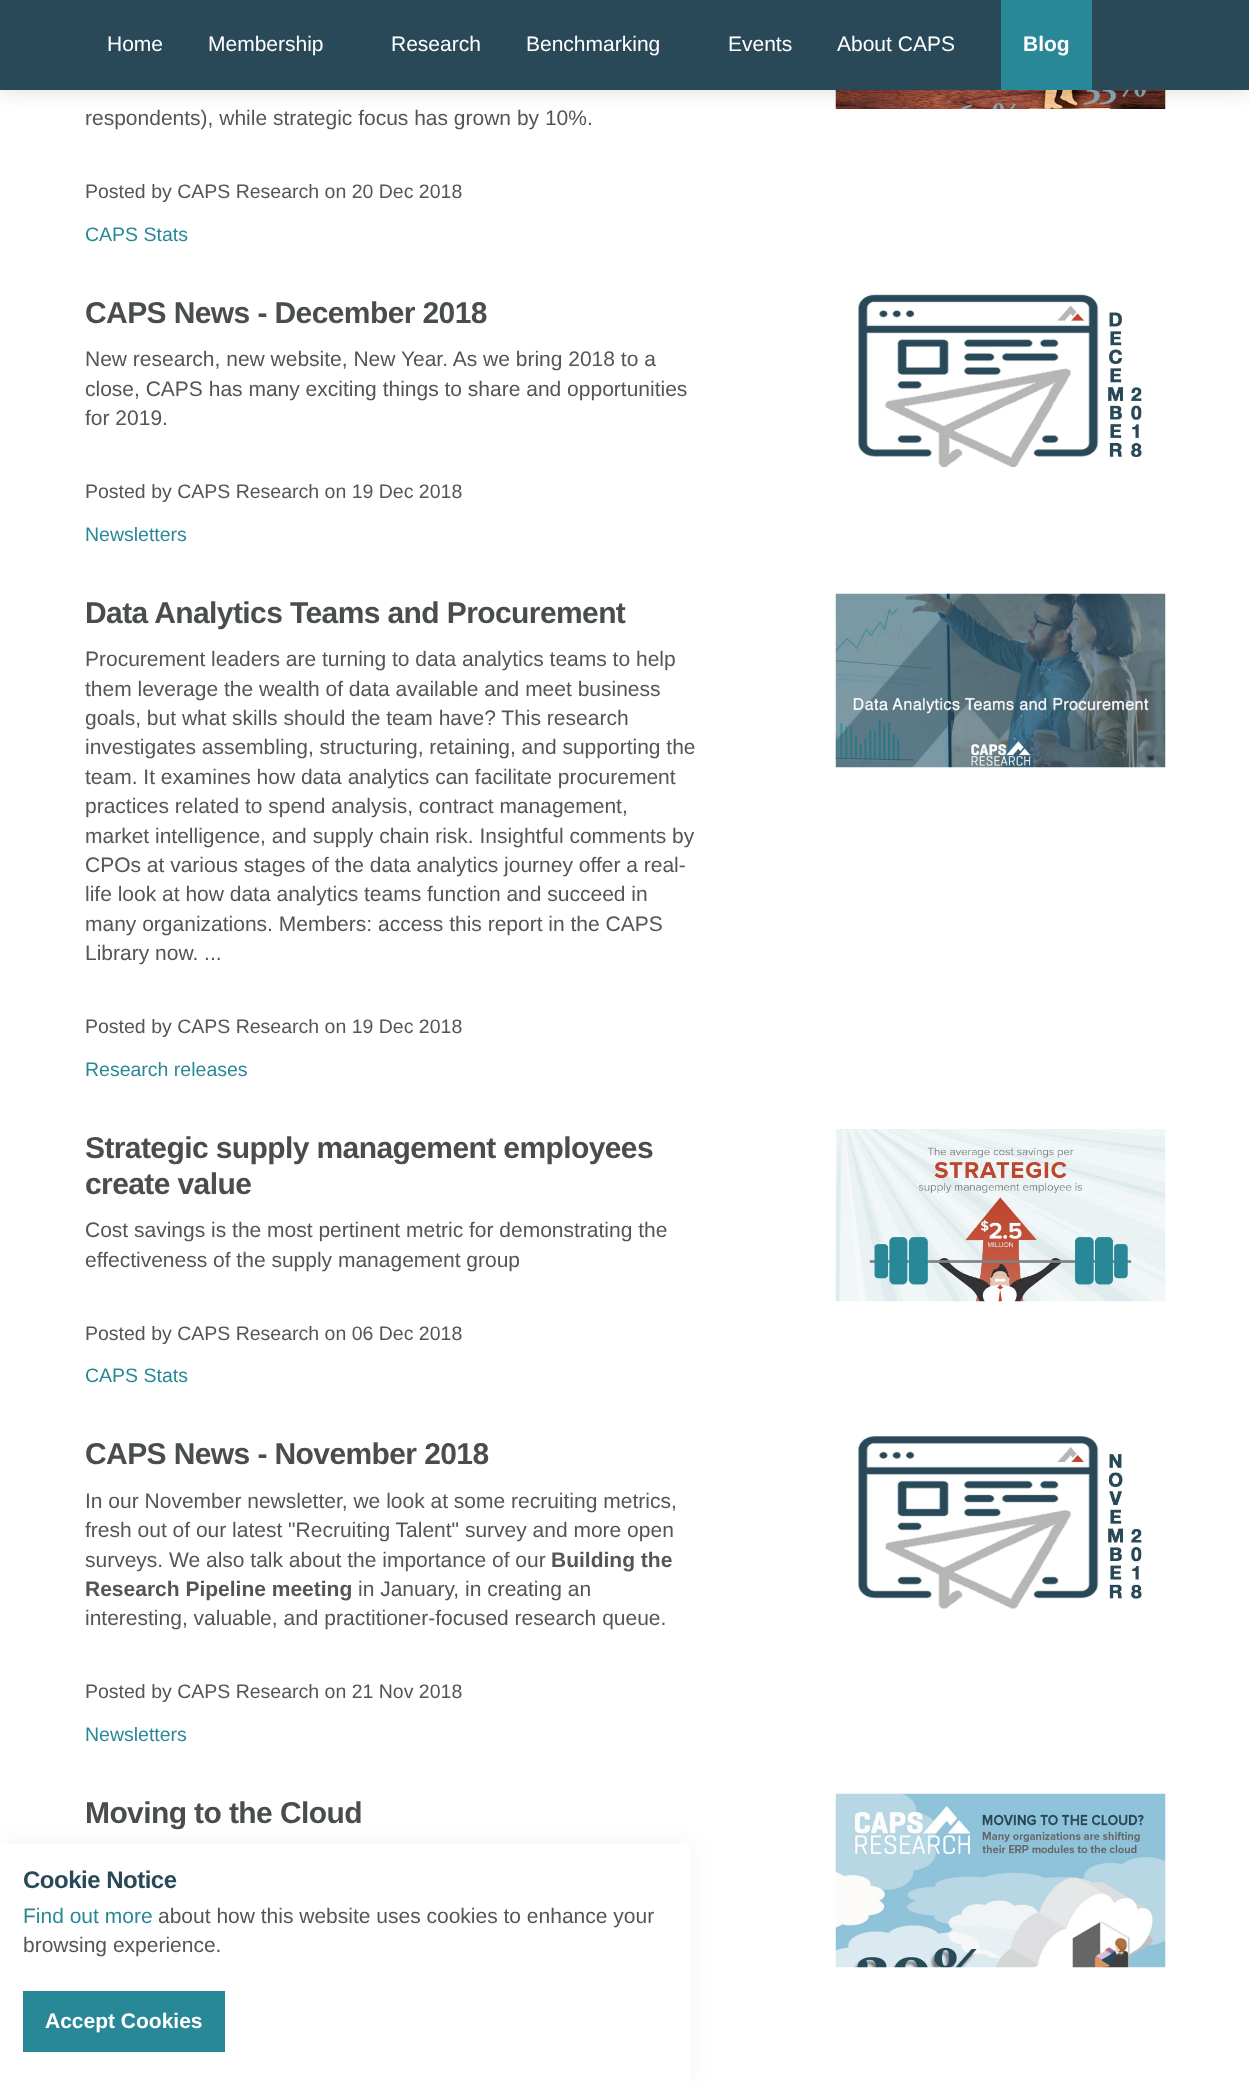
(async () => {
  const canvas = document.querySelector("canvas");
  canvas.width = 1249;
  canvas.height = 2082;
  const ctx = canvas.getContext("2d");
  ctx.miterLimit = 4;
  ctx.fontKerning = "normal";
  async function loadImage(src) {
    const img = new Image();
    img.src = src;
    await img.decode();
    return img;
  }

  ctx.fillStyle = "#ffffff";
  ctx.fillRect(0, 0, 1249, 2082);
  ctx.drawImage(await loadImage("img/1.png"), 835, 90, 331, 19);
  ctx.fillStyle = "rgba(0, 0, 0, 0.15)";
  ctx.filter = "blur(11px)";
  ctx.beginPath();
  ctx.rect(0, -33, 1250, 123);
  ctx.fill();
  ctx.filter = "none";
  ctx.fillStyle = "#294959";
  ctx.fillRect(0, 0, 1249, 90);
  ctx.fillStyle = "#298897";
  ctx.fillRect(1001, 0, 91, 90);
  ctx.drawImage(await loadImage("img/2.png"), 858, 294, 285, 173);
  ctx.drawImage(await loadImage("img/3.png"), 835, 593, 331, 175);
  ctx.drawImage(await loadImage("img/4.png"), 835, 1129, 331, 173);
  ctx.drawImage(await loadImage("img/5.png"), 858, 1436, 285, 173);
  ctx.drawImage(await loadImage("img/6.png"), 835, 1793, 331, 175);
  ctx.fillStyle = "rgba(0, 0, 0, 0.05)";
  ctx.filter = "blur(11px)";
  ctx.beginPath();
  ctx.rect(0, 1844, 690, 238);
  ctx.fill();
  ctx.filter = "none";
  ctx.fillStyle = "#ffffff";
  ctx.fillRect(0, 1844, 690, 238);
  ctx.fillStyle = "#298897";
  ctx.fillRect(23, 1991, 202, 61);
  ctx.font = "21px Liberation Sans";
  ctx.fillStyle = "#ffffff";
  for (const [text, x, y] of [
    ["Home", 107, 51],
    ["Membership", 208, 51],
    ["Research", 391, 51],
    ["Benchmarking", 526, 51],
    ["Events", 728, 51],
    ["About CAPS", 837, 51],
  ]) {
    ctx.fillText(text, x, y);
  }
  ctx.font = "bold 21px Liberation Sans";
  ctx.fillText("Blog", 1023, 51);
  ctx.font = "21px Liberation Sans";
  ctx.fillStyle = "#555555";
  ctx.fillText("respondents), while strategic focus has grown by 10%.", 85, 125);
  ctx.font = "19.5px Liberation Sans";
  ctx.fillText("Posted by CAPS Research on 20 Dec 2018", 85, 198);
  ctx.fillStyle = "#298897";
  ctx.fillText("CAPS Stats", 85, 241);
  ctx.letterSpacing = "-0.6px";
  ctx.font = "bold 30px Liberation Sans";
  ctx.fillStyle = "#4a4e4b";
  ctx.fillText("CAPS News - December 2018", 85, 323);
  ctx.letterSpacing = "0px";
  ctx.font = "21px Liberation Sans";
  ctx.fillStyle = "#555555";
  for (const [text, x, y] of [
    ["New research, new website, New Year. As we bring 2018 to a", 85, 366],
    ["close, CAPS has many exciting things to share and opportunities", 85, 396],
    ["for 2019.", 85, 425],
  ]) {
    ctx.fillText(text, x, y);
  }
  ctx.font = "19.5px Liberation Sans";
  ctx.fillText("Posted by CAPS Research on 19 Dec 2018", 85, 498);
  ctx.fillStyle = "#298897";
  ctx.fillText("Newsletters", 85, 541);
  ctx.letterSpacing = "-0.6px";
  ctx.font = "bold 30px Liberation Sans";
  ctx.fillStyle = "#4a4e4b";
  ctx.fillText("Data Analytics Teams and Procurement", 85, 623);
  ctx.letterSpacing = "0px";
  ctx.font = "21px Liberation Sans";
  ctx.fillStyle = "#555555";
  for (const [text, x, y] of [
    ["Procurement leaders are turning to data analytics teams to help", 85, 666],
    ["them leverage the wealth of data available and meet business", 85, 696],
    ["goals, but what skills should the team have? This research", 85, 725],
    ["investigates assembling, structuring, retaining, and supporting the", 85, 754],
    ["team. It examines how data analytics can facilitate procurement", 85, 784],
    ["practices related to spend analysis, contract management,", 85, 813],
    ["market intelligence, and supply chain risk. Insightful comments by", 85, 843],
    ["CPOs at various stages of the data analytics journey offer a real-", 85, 872],
    ["life look at how data analytics teams function and succeed in", 85, 901],
    ["many organizations. Members: access this report in the CAPS", 85, 931],
    ["Library now. ...", 85, 960],
  ]) {
    ctx.fillText(text, x, y);
  }
  ctx.font = "19.5px Liberation Sans";
  ctx.fillText("Posted by CAPS Research on 19 Dec 2018", 85, 1033);
  ctx.fillStyle = "#298897";
  ctx.fillText("Research releases", 85, 1076);
  ctx.letterSpacing = "-0.6px";
  ctx.font = "bold 30px Liberation Sans";
  ctx.fillStyle = "#4a4e4b";
  ctx.fillText("Strategic supply management employees", 85, 1158);
  ctx.fillText("create value", 85, 1194);
  ctx.letterSpacing = "0px";
  ctx.font = "21px Liberation Sans";
  ctx.fillStyle = "#555555";
  ctx.fillText("Cost savings is the most pertinent metric for demonstrating the", 85, 1237);
  ctx.fillText("effectiveness of the supply management group", 85, 1267);
  ctx.font = "19.5px Liberation Sans";
  ctx.fillText("Posted by CAPS Research on 06 Dec 2018", 85, 1340);
  ctx.fillStyle = "#298897";
  ctx.fillText("CAPS Stats", 85, 1382);
  ctx.letterSpacing = "-0.6px";
  ctx.font = "bold 30px Liberation Sans";
  ctx.fillStyle = "#4a4e4b";
  ctx.fillText("CAPS News - November 2018", 85, 1464);
  ctx.letterSpacing = "0px";
  ctx.font = "21px Liberation Sans";
  ctx.fillStyle = "#555555";
  for (const [text, x, y] of [
    ["In our November newsletter, we look at some recruiting metrics,", 85, 1508],
    ["fresh out of our latest \"Recruiting Talent\" survey and more open", 85, 1537],
    ["surveys. We also talk about the importance of our", 85, 1567],
  ]) {
    ctx.fillText(text, x, y);
  }
  ctx.font = "bold 21px Liberation Sans";
  ctx.fillText("Building the", 551, 1567);
  ctx.fillText("Research Pipeline meeting", 85, 1596);
  ctx.font = "21px Liberation Sans";
  ctx.fillText("in January, in creating an", 358, 1596);
  ctx.fillText("interesting, valuable, and practitioner-focused research queue.", 85, 1625);
  ctx.font = "19.5px Liberation Sans";
  ctx.fillText("Posted by CAPS Research on 21 Nov 2018", 85, 1698);
  ctx.fillStyle = "#298897";
  ctx.fillText("Newsletters", 85, 1741);
  ctx.letterSpacing = "-0.6px";
  ctx.font = "bold 30px Liberation Sans";
  ctx.fillStyle = "#4a4e4b";
  ctx.fillText("Moving to the Cloud", 85, 1823);
  ctx.letterSpacing = "-0.5px";
  ctx.font = "bold 24px Liberation Sans";
  ctx.fillStyle = "#294959";
  ctx.fillText("Cookie Notice", 23, 1888);
  ctx.letterSpacing = "0px";
  ctx.font = "21px Liberation Sans";
  ctx.fillStyle = "#298897";
  ctx.fillText("Find out more", 23, 1923);
  ctx.fillStyle = "#555555";
  ctx.fillText("about how this website uses cookies to enhance your", 158, 1923);
  ctx.fillText("browsing experience.", 23, 1952);
  ctx.font = "bold 21px Liberation Sans";
  ctx.fillStyle = "#ffffff";
  ctx.fillText("Accept Cookies", 45, 2028);
})();
